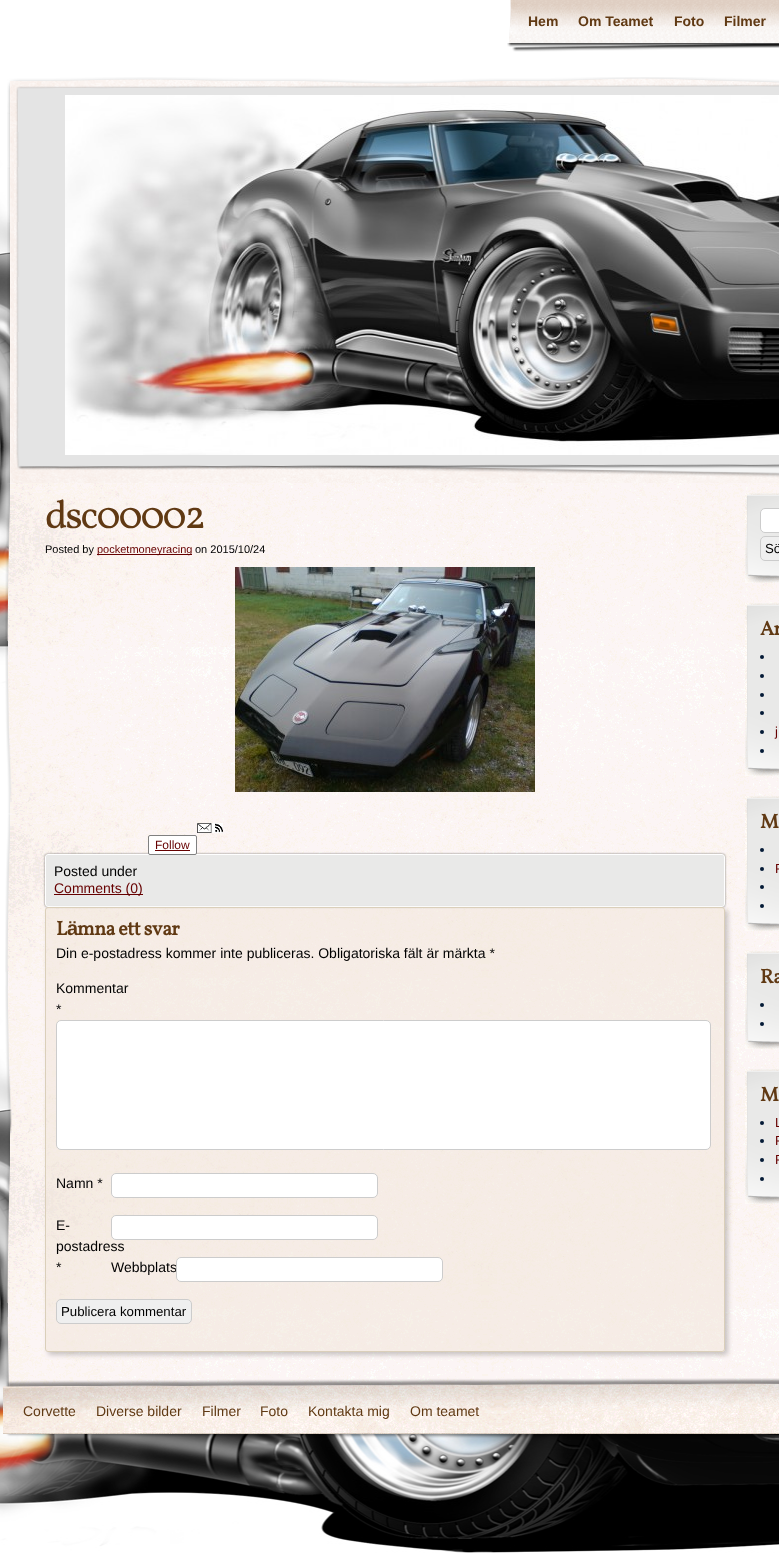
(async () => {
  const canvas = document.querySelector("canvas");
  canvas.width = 779;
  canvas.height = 1555;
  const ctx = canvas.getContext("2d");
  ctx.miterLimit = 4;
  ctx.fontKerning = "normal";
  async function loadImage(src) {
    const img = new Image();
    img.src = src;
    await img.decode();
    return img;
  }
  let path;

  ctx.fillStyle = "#ffffff";
  ctx.fillRect(0, 0, 779, 1555);
  ctx.drawImage(await loadImage("img/1.png"), 0, 0, 779, 1555);
  ctx.drawImage(await loadImage("img/2.png"), 509, 0, 9, 44);
  ctx.drawImage(await loadImage("img/3.png"), 518, 0, 261, 48);
  ctx.drawImage(await loadImage("img/4.png"), 507, 43, 272, 9);
  ctx.drawImage(await loadImage("img/5.png"), 7, 112, 58, 371);
  ctx.drawImage(await loadImage("img/6.png"), 7, 77, 772, 55);
  ctx.drawImage(await loadImage("img/7.png"), 13, 428, 766, 55);
  ctx.drawImage(await loadImage("img/8.png"), 65, 95, 714, 360);
  ctx.drawImage(await loadImage("img/9.png"), 5, 483, 774, 904);
  ctx.fillStyle = "#660000";
  ctx.fillRect(97, 554, 95, 1);
  ctx.drawImage(await loadImage("img/10.png"), 235, 567, 300, 225);
  ctx.fillStyle = "rgba(0, 0, 0, 0.5)";
  ctx.filter = "blur(1px)";
  ctx.beginPath();
  ctx.roundRect(45, 854, 680, 53, 3);
  ctx.fill();
  ctx.filter = "none";
  ctx.fillStyle = "#e9e9e8";
  ctx.beginPath();
  ctx.roundRect(45.5, 854.5, 679, 52, 2.5);
  ctx.fill();
  ctx.strokeStyle = "#ffffff";
  ctx.stroke();
  ctx.fillStyle = "#ffffff";
  ctx.beginPath();
  ctx.roundRect(148.5, 835.5, 48, 19, 1.5);
  ctx.fill();
  ctx.strokeStyle = "#808080";
  ctx.stroke();
  ctx.drawImage(await loadImage("img/11.png"), 197, 823, 26, 10);
  ctx.fillStyle = "#660000";
  ctx.fillRect(155, 850, 35, 1);
  ctx.fillRect(54, 894, 89, 1);
  ctx.save();
  path = new Path2D("M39 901H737V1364H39ZM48 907H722C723.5 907 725 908.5 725 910V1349C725 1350.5 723.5 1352 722 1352H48C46.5 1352 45 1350.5 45 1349V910C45 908.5 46.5 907 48 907Z");
  ctx.clip(path, "evenodd");
  ctx.fillStyle = "rgba(0, 0, 0, 0.2)";
  ctx.filter = "blur(2.5px)";
  ctx.beginPath();
  ctx.roundRect(48, 910, 680, 445, 3);
  ctx.fill();
  ctx.filter = "none";
  ctx.restore();
  ctx.fillStyle = "rgba(239, 227, 216, 0.5)";
  ctx.beginPath();
  ctx.roundRect(45.5, 907.5, 679, 444, 2.5);
  ctx.fill();
  ctx.strokeStyle = "#dacfba";
  ctx.stroke();
  ctx.fillStyle = "#ffffff";
  ctx.beginPath();
  ctx.roundRect(56.5, 1020.5, 654, 129, 4.5);
  ctx.fill();
  ctx.strokeStyle = "#cccccc";
  ctx.stroke();
  ctx.beginPath();
  ctx.roundRect(111.5, 1173.5, 266, 24, 4.5);
  ctx.fill();
  ctx.stroke();
  ctx.beginPath();
  ctx.roundRect(111.5, 1215.5, 266, 24, 4.5);
  ctx.fill();
  ctx.stroke();
  ctx.fillStyle = "#efefef";
  ctx.beginPath();
  ctx.roundRect(56.5, 1299.5, 135, 24, 4.5);
  ctx.fill();
  ctx.stroke();
  ctx.drawImage(await loadImage("img/12.png"), 745, 493, 34, 90);
  ctx.fillStyle = "#ffffff";
  ctx.beginPath();
  ctx.roundRect(760.5, 508.5, 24, 24, 4.5);
  ctx.fill();
  ctx.stroke();
  ctx.fillStyle = "#efefef";
  ctx.beginPath();
  ctx.roundRect(760.5, 536.5, 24, 24, 4.5);
  ctx.fill();
  ctx.stroke();
  ctx.fillStyle = "#e9e9e8";
  ctx.fillRect(757, 633, 22, 80);
  ctx.drawImage(await loadImage("img/13.png"), 745, 603, 34, 173);
  ctx.fillStyle = "#041a36";
  ctx.beginPath();
  ctx.arc(762, 657, 2, 0, Math.PI * 2);
  ctx.fill();
  ctx.beginPath();
  ctx.arc(762, 676, 2, 0, Math.PI * 2);
  ctx.fill();
  ctx.beginPath();
  ctx.arc(762, 695, 2, 0, Math.PI * 2);
  ctx.fill();
  ctx.beginPath();
  ctx.arc(762, 713, 2, 0, Math.PI * 2);
  ctx.fill();
  ctx.beginPath();
  ctx.arc(762, 732, 2, 0, Math.PI * 2);
  ctx.fill();
  ctx.beginPath();
  ctx.arc(762, 751, 2, 0, Math.PI * 2);
  ctx.fill();
  ctx.fillStyle = "#e9e9e8";
  ctx.fillRect(757, 826, 22, 42);
  ctx.drawImage(await loadImage("img/14.png"), 745, 796, 34, 135);
  ctx.fillStyle = "#041a36";
  ctx.beginPath();
  ctx.arc(762, 850, 2, 0, Math.PI * 2);
  ctx.fill();
  ctx.beginPath();
  ctx.arc(762, 869, 2, 0, Math.PI * 2);
  ctx.fill();
  ctx.beginPath();
  ctx.arc(762, 887, 2, 0, Math.PI * 2);
  ctx.fill();
  ctx.beginPath();
  ctx.arc(762, 906, 2, 0, Math.PI * 2);
  ctx.fill();
  ctx.fillStyle = "#e9e9e8";
  ctx.fillRect(757, 981, 22, 5);
  ctx.drawImage(await loadImage("img/15.png"), 745, 951, 34, 98);
  ctx.fillStyle = "#041a36";
  ctx.beginPath();
  ctx.arc(762, 1005, 2, 0, Math.PI * 2);
  ctx.fill();
  ctx.beginPath();
  ctx.arc(762, 1024, 2, 0, Math.PI * 2);
  ctx.fill();
  ctx.fillStyle = "#e9e9e8";
  ctx.fillRect(757, 1099, 22, 42);
  ctx.drawImage(await loadImage("img/14.png"), 745, 1069, 34, 135);
  ctx.fillStyle = "#041a36";
  ctx.beginPath();
  ctx.arc(762, 1123, 2, 0, Math.PI * 2);
  ctx.fill();
  ctx.beginPath();
  ctx.arc(762, 1141, 2, 0, Math.PI * 2);
  ctx.fill();
  ctx.beginPath();
  ctx.arc(762, 1160, 2, 0, Math.PI * 2);
  ctx.fill();
  ctx.beginPath();
  ctx.arc(762, 1179, 2, 0, Math.PI * 2);
  ctx.fill();
  ctx.drawImage(await loadImage("img/16.png"), 3, 1378, 776, 61);
  ctx.font = "bold 14px Liberation Sans";
  ctx.fillStyle = "#603913";
  for (const [text, x, y] of [
    ["Hem", 528, 26],
    ["Om Teamet", 578, 26],
    ["Foto", 674, 26],
    ["Filmer", 724, 26],
  ]) {
    ctx.fillText(text, x, y);
  }
  ctx.letterSpacing = "-2px";
  ctx.font = "40px Vollkorn";
  ctx.fillText("dsc00002", 45, 528);
  ctx.letterSpacing = "0px";
  ctx.font = "11px Liberation Sans";
  ctx.fillStyle = "#000000";
  ctx.fillText("Posted by", 45, 553);
  ctx.fillStyle = "#660000";
  ctx.fillText("pocketmoneyracing", 97, 553);
  ctx.fillStyle = "#000000";
  ctx.fillText("on 2015/10/24", 195, 553);
  ctx.font = "12px Liberation Sans";
  ctx.fillStyle = "#660000";
  ctx.fillText("Follow", 155, 849);
  ctx.font = "14px Liberation Sans";
  ctx.fillStyle = "#000000";
  ctx.fillText("Posted under", 54, 876);
  ctx.fillStyle = "#660000";
  ctx.fillText("Comments (0)", 54, 893);
  ctx.letterSpacing = "-0.5px";
  ctx.font = "bold 20px Vollkorn";
  ctx.fillStyle = "#603913";
  ctx.fillText("L", 56, 935);
  ctx.font = "bold 20px Liberation Sans";
  ctx.fillText("ä", 67, 935);
  ctx.font = "bold 20px Vollkorn";
  ctx.fillText("mna ett svar", 77, 935);
  ctx.letterSpacing = "0px";
  ctx.font = "14px Liberation Sans";
  ctx.fillStyle = "#000000";
  for (const [text, x, y] of [
    ["Din e-postadress kommer inte publiceras. Obligatoriska fält är märkta *", 56, 958],
    ["Kommentar", 56, 993],
    ["*", 56, 1014],
    ["Namn *", 56, 1188],
    ["E-", 56, 1230],
    ["postadress", 56, 1251],
    ["*", 56, 1272],
    ["Webbplats", 111, 1272],
  ]) {
    ctx.fillText(text, x, y);
  }
  ctx.fillStyle = "#ffffff";
  ctx.beginPath();
  ctx.roundRect(176.5, 1257.5, 266, 24, 4.5);
  ctx.fill();
  ctx.stroke();
  ctx.font = "13.25px Liberation Sans";
  ctx.fillStyle = "#000000";
  ctx.fillText("Publicera kommentar", 61, 1316);
  ctx.fillText("Sö", 765, 553);
  ctx.letterSpacing = "-0.5px";
  ctx.font = "bold 20px Vollkorn";
  ctx.fillStyle = "#603913";
  ctx.fillText("Ar", 760, 635);
  ctx.letterSpacing = "0px";
  ctx.font = "13px Liberation Sans";
  ctx.fillStyle = "#660000";
  ctx.fillText("j", 775, 736);
  ctx.letterSpacing = "-0.5px";
  ctx.font = "bold 20px Vollkorn";
  ctx.fillStyle = "#603913";
  ctx.fillText("M", 760, 828);
  ctx.letterSpacing = "0px";
  ctx.font = "13px Liberation Sans";
  ctx.fillStyle = "#660000";
  ctx.fillText("F", 775, 873);
  ctx.letterSpacing = "-0.5px";
  ctx.font = "bold 20px Vollkorn";
  ctx.fillStyle = "#603913";
  ctx.fillText("Ra", 760, 983);
  ctx.fillText("M", 760, 1101);
  ctx.letterSpacing = "0px";
  ctx.font = "13px Liberation Sans";
  ctx.fillStyle = "#660000";
  for (const [text, x, y] of [
    ["L", 775, 1127],
    ["F", 775, 1145],
    ["F", 775, 1164],
  ]) {
    ctx.fillText(text, x, y);
  }
  ctx.font = "14px Liberation Sans";
  ctx.fillStyle = "#603913";
  for (const [text, x, y] of [
    ["Corvette", 23, 1416],
    ["Diverse bilder", 96, 1416],
    ["Filmer", 202, 1416],
    ["Foto", 260, 1416],
    ["Kontakta mig", 308, 1416],
    ["Om teamet", 410, 1416],
  ]) {
    ctx.fillText(text, x, y);
  }
})();
